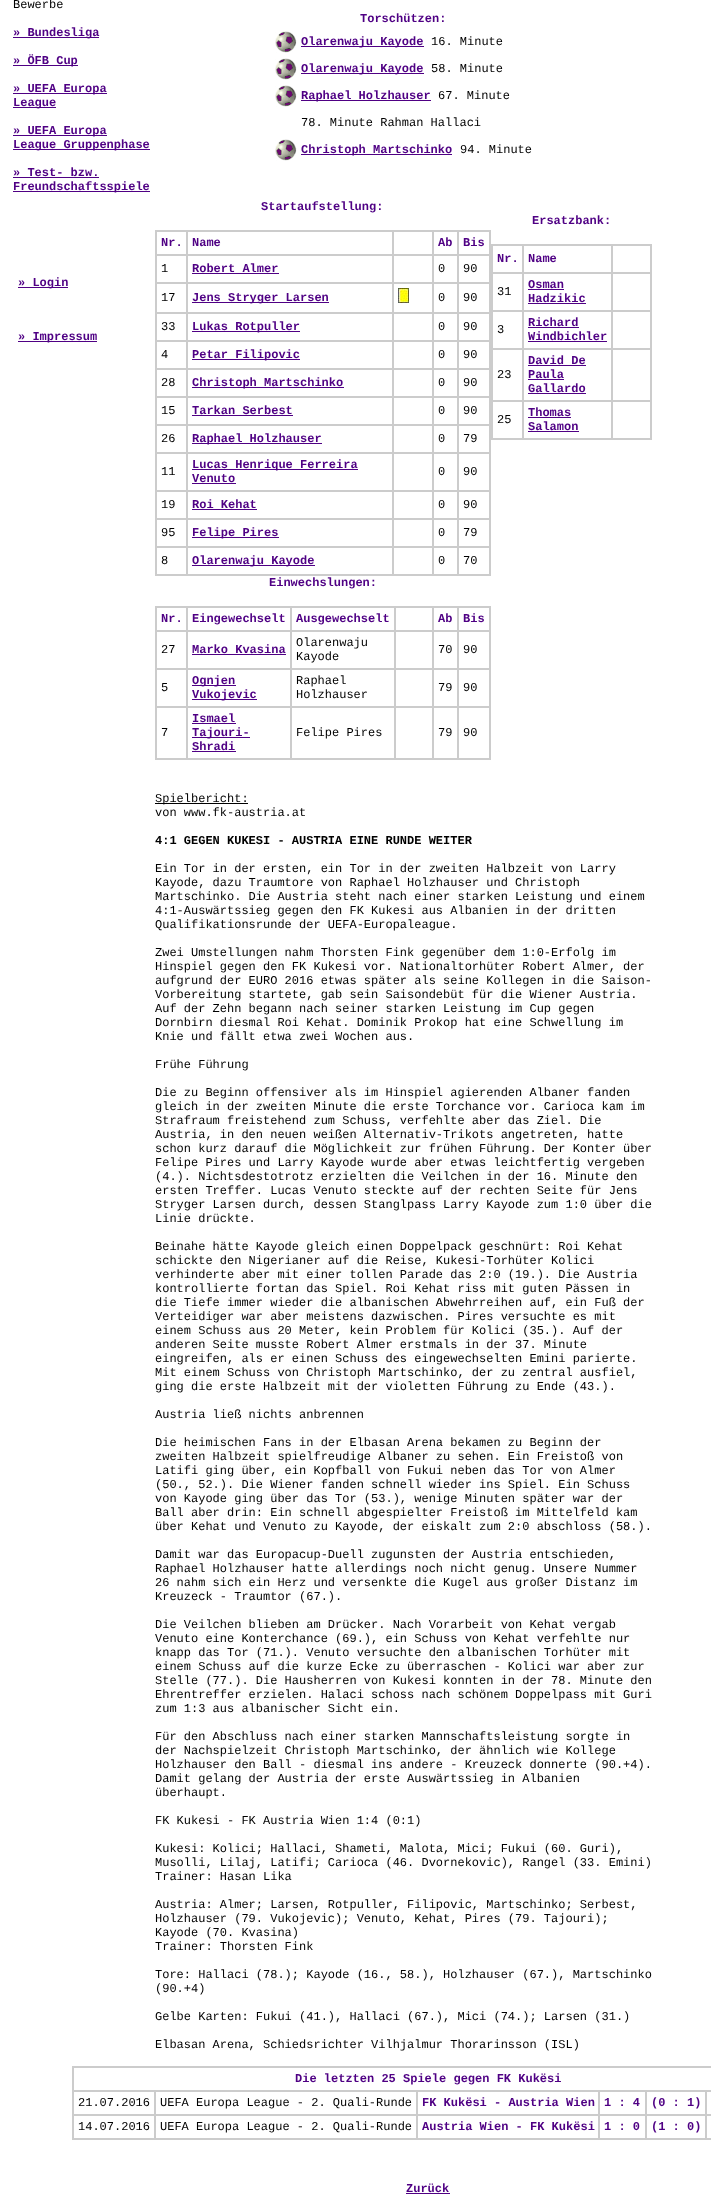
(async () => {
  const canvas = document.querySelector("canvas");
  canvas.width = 711;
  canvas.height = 2204;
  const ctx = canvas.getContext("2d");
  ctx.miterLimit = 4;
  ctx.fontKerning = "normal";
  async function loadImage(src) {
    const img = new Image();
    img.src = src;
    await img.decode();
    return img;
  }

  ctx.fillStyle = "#ffffff";
  ctx.fillRect(0, 0, 711, 2204);
  for (const [x, y, w, h, color] of [
    [13, 37, 86, 1, "#4f0084"],
    [13, 65, 65, 1, "#4f0084"],
    [13, 93, 94, 1, "#4f0084"],
    [13, 107, 43, 1, "#4f0084"],
    [13, 135, 94, 1, "#4f0084"],
    [13, 149, 137, 1, "#4f0084"],
    [13, 177, 86, 1, "#4f0084"],
    [13, 191, 137, 1, "#4f0084"],
    [18, 287, 50, 1, "#4f0084"],
    [18, 341, 79, 1, "#4f0084"],
  ]) {
    ctx.fillStyle = color;
    ctx.fillRect(x, y, w, h);
  }
  ctx.drawImage(await loadImage("img/1.png"), 275, 31, 22, 22);
  ctx.fillRect(301, 46, 123, 1);
  ctx.drawImage(await loadImage("img/1.png"), 275, 58, 22, 22);
  ctx.fillRect(301, 73, 123, 1);
  ctx.drawImage(await loadImage("img/1.png"), 275, 85, 22, 22);
  ctx.fillRect(301, 100, 130, 1);
  ctx.drawImage(await loadImage("img/1.png"), 275, 139, 22, 22);
  ctx.fillRect(301, 154, 151, 1);
  ctx.strokeStyle = "#cccccc";
  ctx.strokeRect(155.5, 230.5, 335, 345);
  ctx.strokeRect(156.5, 231.5, 30, 23);
  ctx.strokeRect(187.5, 231.5, 205, 23);
  ctx.strokeRect(393.5, 231.5, 39, 23);
  ctx.strokeRect(433.5, 231.5, 24, 23);
  ctx.strokeRect(458.5, 231.5, 31, 23);
  ctx.strokeRect(156.5, 255.5, 30, 27);
  ctx.strokeRect(187.5, 255.5, 205, 27);
  ctx.fillRect(192, 273, 87, 1);
  ctx.strokeRect(393.5, 255.5, 39, 27);
  ctx.strokeRect(433.5, 255.5, 24, 27);
  ctx.strokeRect(458.5, 255.5, 31, 27);
  ctx.strokeRect(156.5, 283.5, 30, 29);
  ctx.strokeRect(187.5, 283.5, 205, 29);
  ctx.fillRect(192, 302, 137, 1);
  ctx.strokeRect(393.5, 283.5, 39, 29);
  ctx.drawImage(await loadImage("img/2.png"), 398, 288, 11, 15);
  ctx.strokeRect(433.5, 283.5, 24, 29);
  ctx.strokeRect(458.5, 283.5, 31, 29);
  ctx.strokeRect(156.5, 313.5, 30, 27);
  ctx.strokeRect(187.5, 313.5, 205, 27);
  ctx.fillRect(192, 331, 108, 1);
  ctx.strokeRect(393.5, 313.5, 39, 27);
  ctx.strokeRect(433.5, 313.5, 24, 27);
  ctx.strokeRect(458.5, 313.5, 31, 27);
  ctx.strokeRect(156.5, 341.5, 30, 27);
  ctx.strokeRect(187.5, 341.5, 205, 27);
  ctx.fillRect(192, 359, 108, 1);
  ctx.strokeRect(393.5, 341.5, 39, 27);
  ctx.strokeRect(433.5, 341.5, 24, 27);
  ctx.strokeRect(458.5, 341.5, 31, 27);
  ctx.strokeRect(156.5, 369.5, 30, 27);
  ctx.strokeRect(187.5, 369.5, 205, 27);
  ctx.fillRect(192, 387, 152, 1);
  ctx.strokeRect(393.5, 369.5, 39, 27);
  ctx.strokeRect(433.5, 369.5, 24, 27);
  ctx.strokeRect(458.5, 369.5, 31, 27);
  ctx.strokeRect(156.5, 397.5, 30, 27);
  ctx.strokeRect(187.5, 397.5, 205, 27);
  ctx.fillRect(192, 415, 101, 1);
  ctx.strokeRect(393.5, 397.5, 39, 27);
  ctx.strokeRect(433.5, 397.5, 24, 27);
  ctx.strokeRect(458.5, 397.5, 31, 27);
  ctx.strokeRect(156.5, 425.5, 30, 27);
  ctx.strokeRect(187.5, 425.5, 205, 27);
  ctx.fillRect(192, 443, 130, 1);
  ctx.strokeRect(393.5, 425.5, 39, 27);
  ctx.strokeRect(433.5, 425.5, 24, 27);
  ctx.strokeRect(458.5, 425.5, 31, 27);
  ctx.strokeRect(156.5, 453.5, 30, 37);
  ctx.strokeRect(187.5, 453.5, 205, 37);
  ctx.fillRect(192, 469, 166, 1);
  ctx.fillRect(192, 483, 44, 1);
  ctx.strokeRect(393.5, 453.5, 39, 37);
  ctx.strokeRect(433.5, 453.5, 24, 37);
  ctx.strokeRect(458.5, 453.5, 31, 37);
  ctx.strokeRect(156.5, 491.5, 30, 27);
  ctx.strokeRect(187.5, 491.5, 205, 27);
  ctx.fillRect(192, 509, 65, 1);
  ctx.strokeRect(393.5, 491.5, 39, 27);
  ctx.strokeRect(433.5, 491.5, 24, 27);
  ctx.strokeRect(458.5, 491.5, 31, 27);
  ctx.strokeRect(156.5, 519.5, 30, 27);
  ctx.strokeRect(187.5, 519.5, 205, 27);
  ctx.fillRect(192, 537, 87, 1);
  ctx.strokeRect(393.5, 519.5, 39, 27);
  ctx.strokeRect(433.5, 519.5, 24, 27);
  ctx.strokeRect(458.5, 519.5, 31, 27);
  ctx.strokeRect(156.5, 547.5, 30, 27);
  ctx.strokeRect(187.5, 547.5, 205, 27);
  ctx.fillRect(192, 565, 123, 1);
  ctx.strokeRect(393.5, 547.5, 39, 27);
  ctx.strokeRect(433.5, 547.5, 24, 27);
  ctx.strokeRect(458.5, 547.5, 31, 27);
  ctx.strokeRect(491.5, 244.5, 160, 195);
  ctx.strokeRect(492.5, 245.5, 30, 27);
  ctx.strokeRect(523.5, 245.5, 88, 27);
  ctx.strokeRect(612.5, 245.5, 38, 27);
  ctx.strokeRect(492.5, 273.5, 30, 37);
  ctx.strokeRect(523.5, 273.5, 88, 37);
  ctx.fillRect(528, 289, 36, 1);
  ctx.fillRect(528, 303, 58, 1);
  ctx.strokeRect(612.5, 273.5, 38, 37);
  ctx.strokeRect(492.5, 311.5, 30, 37);
  ctx.strokeRect(523.5, 311.5, 88, 37);
  ctx.fillRect(528, 327, 51, 1);
  ctx.fillRect(528, 341, 79, 1);
  ctx.strokeRect(612.5, 311.5, 38, 37);
  ctx.strokeRect(492.5, 349.5, 30, 51);
  ctx.strokeRect(523.5, 349.5, 88, 51);
  for (const [x, y, w, h, color] of [
    [528, 365, 58, 1, "#4f0084"],
    [528, 379, 36, 1, "#4f0084"],
    [528, 393, 58, 1, "#4f0084"],
  ]) {
    ctx.fillStyle = color;
    ctx.fillRect(x, y, w, h);
  }
  ctx.strokeRect(612.5, 349.5, 38, 51);
  ctx.strokeRect(492.5, 401.5, 30, 37);
  ctx.strokeRect(523.5, 401.5, 88, 37);
  ctx.fillRect(528, 417, 43, 1);
  ctx.fillRect(528, 431, 51, 1);
  ctx.strokeRect(612.5, 401.5, 38, 37);
  ctx.strokeRect(155.5, 606.5, 335, 153);
  ctx.strokeRect(156.5, 607.5, 30, 23);
  ctx.strokeRect(187.5, 607.5, 103, 23);
  ctx.strokeRect(291.5, 607.5, 103, 23);
  ctx.strokeRect(395.5, 607.5, 37, 23);
  ctx.strokeRect(433.5, 607.5, 24, 23);
  ctx.strokeRect(458.5, 607.5, 31, 23);
  ctx.strokeRect(156.5, 631.5, 30, 37);
  ctx.strokeRect(187.5, 631.5, 103, 37);
  ctx.fillRect(192, 654, 94, 1);
  ctx.strokeRect(291.5, 631.5, 103, 37);
  ctx.strokeRect(395.5, 631.5, 37, 37);
  ctx.strokeRect(433.5, 631.5, 24, 37);
  ctx.strokeRect(458.5, 631.5, 31, 37);
  ctx.strokeRect(156.5, 669.5, 30, 37);
  ctx.strokeRect(187.5, 669.5, 103, 37);
  ctx.fillRect(192, 685, 44, 1);
  ctx.fillRect(192, 699, 65, 1);
  ctx.strokeRect(291.5, 669.5, 103, 37);
  ctx.strokeRect(395.5, 669.5, 37, 37);
  ctx.strokeRect(433.5, 669.5, 24, 37);
  ctx.strokeRect(458.5, 669.5, 31, 37);
  ctx.strokeRect(156.5, 707.5, 30, 51);
  ctx.strokeRect(187.5, 707.5, 103, 51);
  for (const [x, y, w, h, color] of [
    [192, 723, 44, 1, "#4f0084"],
    [192, 737, 58, 1, "#4f0084"],
    [192, 751, 44, 1, "#4f0084"],
  ]) {
    ctx.fillStyle = color;
    ctx.fillRect(x, y, w, h);
  }
  ctx.strokeRect(291.5, 707.5, 103, 51);
  ctx.strokeRect(395.5, 707.5, 37, 51);
  ctx.strokeRect(433.5, 707.5, 24, 51);
  ctx.strokeRect(458.5, 707.5, 31, 51);
  ctx.fillStyle = "#000000";
  ctx.fillRect(155, 803, 93, 1);
  ctx.strokeRect(72.5, 2066.5, 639, 73);
  ctx.strokeRect(73.5, 2067.5, 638, 23);
  ctx.strokeRect(73.5, 2091.5, 81, 23);
  ctx.strokeRect(155.5, 2091.5, 261, 23);
  ctx.strokeRect(417.5, 2091.5, 181, 23);
  ctx.strokeRect(599.5, 2091.5, 46, 23);
  ctx.strokeRect(646.5, 2091.5, 59, 23);
  ctx.strokeRect(706.5, 2091.5, 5, 23);
  ctx.strokeRect(73.5, 2115.5, 81, 23);
  ctx.strokeRect(155.5, 2115.5, 261, 23);
  ctx.strokeRect(417.5, 2115.5, 181, 23);
  ctx.strokeRect(599.5, 2115.5, 46, 23);
  ctx.strokeRect(646.5, 2115.5, 59, 23);
  ctx.strokeRect(706.5, 2115.5, 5, 23);
  ctx.fillStyle = "#4f0084";
  ctx.fillRect(406, 2193, 44, 1);
  ctx.font = "12px Liberation Mono";
  ctx.fillStyle = "#000000";
  ctx.fillText("Bewerbe", 13, 8);
  ctx.font = "bold 12px Liberation Mono";
  ctx.fillStyle = "#4f0084";
  for (const [text, x, y] of [
    ["» Bundesliga", 13, 36],
    ["» ÖFB Cup", 13, 64],
    ["» UEFA Europa", 13, 92],
    ["League", 13, 106],
    ["» UEFA Europa", 13, 134],
    ["League Gruppenphase", 13, 148],
    ["» Test- bzw.", 13, 176],
    ["Freundschaftsspiele", 13, 190],
    ["» Login", 18, 286],
    ["» Impressum", 18, 340],
    ["Torschützen:", 360, 22],
    ["Olarenwaju Kayode", 301, 45],
  ]) {
    ctx.fillText(text, x, y);
  }
  ctx.font = "12px Liberation Mono";
  ctx.fillStyle = "#000000";
  ctx.fillText("16. Minute", 431, 45);
  ctx.font = "bold 12px Liberation Mono";
  ctx.fillStyle = "#4f0084";
  ctx.fillText("Olarenwaju Kayode", 301, 72);
  ctx.font = "12px Liberation Mono";
  ctx.fillStyle = "#000000";
  ctx.fillText("58. Minute", 431, 72);
  ctx.font = "bold 12px Liberation Mono";
  ctx.fillStyle = "#4f0084";
  ctx.fillText("Raphael Holzhauser", 301, 99);
  ctx.font = "12px Liberation Mono";
  ctx.fillStyle = "#000000";
  ctx.fillText("67. Minute", 438, 99);
  ctx.fillText("78. Minute Rahman Hallaci", 301, 126);
  ctx.font = "bold 12px Liberation Mono";
  ctx.fillStyle = "#4f0084";
  ctx.fillText("Christoph Martschinko", 301, 153);
  ctx.font = "12px Liberation Mono";
  ctx.fillStyle = "#000000";
  ctx.fillText("94. Minute", 460, 153);
  ctx.font = "bold 12px Liberation Mono";
  ctx.fillStyle = "#4f0084";
  for (const [text, x, y] of [
    ["Startaufstellung:", 261, 210],
    ["Nr.", 161, 246],
    ["Name", 192, 246],
    ["Ab", 438, 246],
    ["Bis", 463, 246],
  ]) {
    ctx.fillText(text, x, y);
  }
  ctx.font = "12px Liberation Mono";
  ctx.fillStyle = "#000000";
  ctx.fillText("1", 161, 272);
  ctx.font = "bold 12px Liberation Mono";
  ctx.fillStyle = "#4f0084";
  ctx.fillText("Robert Almer", 192, 272);
  ctx.font = "12px Liberation Mono";
  ctx.fillStyle = "#000000";
  for (const [text, x, y] of [
    ["0", 438, 272],
    ["90", 463, 272],
    ["17", 161, 301],
  ]) {
    ctx.fillText(text, x, y);
  }
  ctx.font = "bold 12px Liberation Mono";
  ctx.fillStyle = "#4f0084";
  ctx.fillText("Jens Stryger Larsen", 192, 301);
  ctx.font = "12px Liberation Mono";
  ctx.fillStyle = "#000000";
  for (const [text, x, y] of [
    ["0", 438, 301],
    ["90", 463, 301],
    ["33", 161, 330],
  ]) {
    ctx.fillText(text, x, y);
  }
  ctx.font = "bold 12px Liberation Mono";
  ctx.fillStyle = "#4f0084";
  ctx.fillText("Lukas Rotpuller", 192, 330);
  ctx.font = "12px Liberation Mono";
  ctx.fillStyle = "#000000";
  for (const [text, x, y] of [
    ["0", 438, 330],
    ["90", 463, 330],
    ["4", 161, 358],
  ]) {
    ctx.fillText(text, x, y);
  }
  ctx.font = "bold 12px Liberation Mono";
  ctx.fillStyle = "#4f0084";
  ctx.fillText("Petar Filipovic", 192, 358);
  ctx.font = "12px Liberation Mono";
  ctx.fillStyle = "#000000";
  for (const [text, x, y] of [
    ["0", 438, 358],
    ["90", 463, 358],
    ["28", 161, 386],
  ]) {
    ctx.fillText(text, x, y);
  }
  ctx.font = "bold 12px Liberation Mono";
  ctx.fillStyle = "#4f0084";
  ctx.fillText("Christoph Martschinko", 192, 386);
  ctx.font = "12px Liberation Mono";
  ctx.fillStyle = "#000000";
  for (const [text, x, y] of [
    ["0", 438, 386],
    ["90", 463, 386],
    ["15", 161, 414],
  ]) {
    ctx.fillText(text, x, y);
  }
  ctx.font = "bold 12px Liberation Mono";
  ctx.fillStyle = "#4f0084";
  ctx.fillText("Tarkan Serbest", 192, 414);
  ctx.font = "12px Liberation Mono";
  ctx.fillStyle = "#000000";
  for (const [text, x, y] of [
    ["0", 438, 414],
    ["90", 463, 414],
    ["26", 161, 442],
  ]) {
    ctx.fillText(text, x, y);
  }
  ctx.font = "bold 12px Liberation Mono";
  ctx.fillStyle = "#4f0084";
  ctx.fillText("Raphael Holzhauser", 192, 442);
  ctx.font = "12px Liberation Mono";
  ctx.fillStyle = "#000000";
  for (const [text, x, y] of [
    ["0", 438, 442],
    ["79", 463, 442],
    ["11", 161, 475],
  ]) {
    ctx.fillText(text, x, y);
  }
  ctx.font = "bold 12px Liberation Mono";
  ctx.fillStyle = "#4f0084";
  ctx.fillText("Lucas Henrique Ferreira", 192, 468);
  ctx.fillText("Venuto", 192, 482);
  ctx.font = "12px Liberation Mono";
  ctx.fillStyle = "#000000";
  for (const [text, x, y] of [
    ["0", 438, 475],
    ["90", 463, 475],
    ["19", 161, 508],
  ]) {
    ctx.fillText(text, x, y);
  }
  ctx.font = "bold 12px Liberation Mono";
  ctx.fillStyle = "#4f0084";
  ctx.fillText("Roi Kehat", 192, 508);
  ctx.font = "12px Liberation Mono";
  ctx.fillStyle = "#000000";
  for (const [text, x, y] of [
    ["0", 438, 508],
    ["90", 463, 508],
    ["95", 161, 536],
  ]) {
    ctx.fillText(text, x, y);
  }
  ctx.font = "bold 12px Liberation Mono";
  ctx.fillStyle = "#4f0084";
  ctx.fillText("Felipe Pires", 192, 536);
  ctx.font = "12px Liberation Mono";
  ctx.fillStyle = "#000000";
  for (const [text, x, y] of [
    ["0", 438, 536],
    ["79", 463, 536],
    ["8", 161, 564],
  ]) {
    ctx.fillText(text, x, y);
  }
  ctx.font = "bold 12px Liberation Mono";
  ctx.fillStyle = "#4f0084";
  ctx.fillText("Olarenwaju Kayode", 192, 564);
  ctx.font = "12px Liberation Mono";
  ctx.fillStyle = "#000000";
  ctx.fillText("0", 438, 564);
  ctx.fillText("70", 463, 564);
  ctx.font = "bold 12px Liberation Mono";
  ctx.fillStyle = "#4f0084";
  for (const [text, x, y] of [
    ["Ersatzbank:", 532, 224],
    ["Nr.", 497, 262],
    ["Name", 528, 262],
  ]) {
    ctx.fillText(text, x, y);
  }
  ctx.font = "12px Liberation Mono";
  ctx.fillStyle = "#000000";
  ctx.fillText("31", 497, 295);
  ctx.font = "bold 12px Liberation Mono";
  ctx.fillStyle = "#4f0084";
  ctx.fillText("Osman", 528, 288);
  ctx.fillText("Hadzikic", 528, 302);
  ctx.font = "12px Liberation Mono";
  ctx.fillStyle = "#000000";
  ctx.fillText("3", 497, 333);
  ctx.font = "bold 12px Liberation Mono";
  ctx.fillStyle = "#4f0084";
  ctx.fillText("Richard", 528, 326);
  ctx.fillText("Windbichler", 528, 340);
  ctx.font = "12px Liberation Mono";
  ctx.fillStyle = "#000000";
  ctx.fillText("23", 497, 378);
  ctx.font = "bold 12px Liberation Mono";
  ctx.fillStyle = "#4f0084";
  for (const [text, x, y] of [
    ["David De", 528, 364],
    ["Paula", 528, 378],
    ["Gallardo", 528, 392],
  ]) {
    ctx.fillText(text, x, y);
  }
  ctx.font = "12px Liberation Mono";
  ctx.fillStyle = "#000000";
  ctx.fillText("25", 497, 423);
  ctx.font = "bold 12px Liberation Mono";
  ctx.fillStyle = "#4f0084";
  for (const [text, x, y] of [
    ["Thomas", 528, 416],
    ["Salamon", 528, 430],
    ["Einwechslungen:", 269, 586],
    ["Nr.", 161, 622],
    ["Eingewechselt", 192, 622],
    ["Ausgewechselt", 296, 622],
    ["Ab", 438, 622],
    ["Bis", 463, 622],
  ]) {
    ctx.fillText(text, x, y);
  }
  ctx.font = "12px Liberation Mono";
  ctx.fillStyle = "#000000";
  ctx.fillText("27", 161, 653);
  ctx.font = "bold 12px Liberation Mono";
  ctx.fillStyle = "#4f0084";
  ctx.fillText("Marko Kvasina", 192, 653);
  ctx.font = "12px Liberation Mono";
  ctx.fillStyle = "#000000";
  for (const [text, x, y] of [
    ["Olarenwaju", 296, 646],
    ["Kayode", 296, 660],
    ["70", 438, 653],
    ["90", 463, 653],
    ["5", 161, 691],
  ]) {
    ctx.fillText(text, x, y);
  }
  ctx.font = "bold 12px Liberation Mono";
  ctx.fillStyle = "#4f0084";
  ctx.fillText("Ognjen", 192, 684);
  ctx.fillText("Vukojevic", 192, 698);
  ctx.font = "12px Liberation Mono";
  ctx.fillStyle = "#000000";
  for (const [text, x, y] of [
    ["Raphael", 296, 684],
    ["Holzhauser", 296, 698],
    ["79", 438, 691],
    ["90", 463, 691],
    ["7", 161, 736],
  ]) {
    ctx.fillText(text, x, y);
  }
  ctx.font = "bold 12px Liberation Mono";
  ctx.fillStyle = "#4f0084";
  for (const [text, x, y] of [
    ["Ismael", 192, 722],
    ["Tajouri-", 192, 736],
    ["Shradi", 192, 750],
  ]) {
    ctx.fillText(text, x, y);
  }
  ctx.font = "12px Liberation Mono";
  ctx.fillStyle = "#000000";
  for (const [text, x, y] of [
    ["Felipe Pires", 296, 736],
    ["79", 438, 736],
    ["90", 463, 736],
    ["Spielbericht:", 155, 802],
    ["von www.fk-austria.at", 155, 816],
  ]) {
    ctx.fillText(text, x, y);
  }
  ctx.font = "bold 12px Liberation Mono";
  ctx.fillText("4:1 GEGEN KUKESI - AUSTRIA EINE RUNDE WEITER", 155, 844);
  ctx.font = "12px Liberation Mono";
  for (const [text, x, y] of [
    ["Ein Tor in der ersten, ein Tor in der zweiten Halbzeit von Larry", 155, 872],
    ["Kayode, dazu Traumtore von Raphael Holzhauser und Christoph", 155, 886],
    ["Martschinko. Die Austria steht nach einer starken Leistung und einem", 155, 900],
    ["4:1-Auswärtssieg gegen den FK Kukesi aus Albanien in der dritten", 155, 914],
    ["Qualifikationsrunde der UEFA-Europaleague.", 155, 928],
    ["Zwei Umstellungen nahm Thorsten Fink gegenüber dem 1:0-Erfolg im", 155, 956],
    ["Hinspiel gegen den FK Kukesi vor. Nationaltorhüter Robert Almer, der", 155, 970],
    ["aufgrund der EURO 2016 etwas später als seine Kollegen in die Saison-", 155, 984],
    ["Vorbereitung startete, gab sein Saisondebüt für die Wiener Austria.", 155, 998],
    ["Auf der Zehn begann nach seiner starken Leistung im Cup gegen", 155, 1012],
    ["Dornbirn diesmal Roi Kehat. Dominik Prokop hat eine Schwellung im", 155, 1026],
    ["Knie und fällt etwa zwei Wochen aus.", 155, 1040],
    ["Frühe Führung", 155, 1068],
    ["Die zu Beginn offensiver als im Hinspiel agierenden Albaner fanden", 155, 1096],
    ["gleich in der zweiten Minute die erste Torchance vor. Carioca kam im", 155, 1110],
    ["Strafraum freistehend zum Schuss, verfehlte aber das Ziel. Die", 155, 1124],
    ["Austria, in den neuen weißen Alternativ-Trikots angetreten, hatte", 155, 1138],
    ["schon kurz darauf die Möglichkeit zur frühen Führung. Der Konter über", 155, 1152],
    ["Felipe Pires und Larry Kayode wurde aber etwas leichtfertig vergeben", 155, 1166],
    ["(4.). Nichtsdestotrotz erzielten die Veilchen in der 16. Minute den", 155, 1180],
    ["ersten Treffer. Lucas Venuto steckte auf der rechten Seite für Jens", 155, 1194],
    ["Stryger Larsen durch, dessen Stanglpass Larry Kayode zum 1:0 über die", 155, 1208],
    ["Linie drückte.", 155, 1222],
    ["Beinahe hätte Kayode gleich einen Doppelpack geschnürt: Roi Kehat", 155, 1250],
    ["schickte den Nigerianer auf die Reise, Kukesi-Torhüter Kolici", 155, 1264],
    ["verhinderte aber mit einer tollen Parade das 2:0 (19.). Die Austria", 155, 1278],
    ["kontrollierte fortan das Spiel. Roi Kehat riss mit guten Pässen in", 155, 1292],
    ["die Tiefe immer wieder die albanischen Abwehrreihen auf, ein Fuß der", 155, 1306],
    ["Verteidiger war aber meistens dazwischen. Pires versuchte es mit", 155, 1320],
    ["einem Schuss aus 20 Meter, kein Problem für Kolici (35.). Auf der", 155, 1334],
    ["anderen Seite musste Robert Almer erstmals in der 37. Minute", 155, 1348],
    ["eingreifen, als er einen Schuss des eingewechselten Emini parierte.", 155, 1362],
    ["Mit einem Schuss von Christoph Martschinko, der zu zentral ausfiel,", 155, 1376],
    ["ging die erste Halbzeit mit der violetten Führung zu Ende (43.).", 155, 1390],
    ["Austria ließ nichts anbrennen", 155, 1418],
    ["Die heimischen Fans in der Elbasan Arena bekamen zu Beginn der", 155, 1446],
    ["zweiten Halbzeit spielfreudige Albaner zu sehen. Ein Freistoß von", 155, 1460],
    ["Latifi ging über, ein Kopfball von Fukui neben das Tor von Almer", 155, 1474],
    ["(50., 52.). Die Wiener fanden schnell wieder ins Spiel. Ein Schuss", 155, 1488],
    ["von Kayode ging über das Tor (53.), wenige Minuten später war der", 155, 1502],
    ["Ball aber drin: Ein schnell abgespielter Freistoß im Mittelfeld kam", 155, 1516],
    ["über Kehat und Venuto zu Kayode, der eiskalt zum 2:0 abschloss (58.).", 155, 1530],
    ["Damit war das Europacup-Duell zugunsten der Austria entschieden,", 155, 1558],
    ["Raphael Holzhauser hatte allerdings noch nicht genug. Unsere Nummer", 155, 1572],
    ["26 nahm sich ein Herz und versenkte die Kugel aus großer Distanz im", 155, 1586],
    ["Kreuzeck - Traumtor (67.).", 155, 1600],
    ["Die Veilchen blieben am Drücker. Nach Vorarbeit von Kehat vergab", 155, 1628],
    ["Venuto eine Konterchance (69.), ein Schuss von Kehat verfehlte nur", 155, 1642],
    ["knapp das Tor (71.). Venuto versuchte den albanischen Torhüter mit", 155, 1656],
    ["einem Schuss auf die kurze Ecke zu überraschen - Kolici war aber zur", 155, 1670],
    ["Stelle (77.). Die Hausherren von Kukesi konnten in der 78. Minute den", 155, 1684],
    ["Ehrentreffer erzielen. Halaci schoss nach schönem Doppelpass mit Guri", 155, 1698],
    ["zum 1:3 aus albanischer Sicht ein.", 155, 1712],
    ["Für den Abschluss nach einer starken Mannschaftsleistung sorgte in", 155, 1740],
    ["der Nachspielzeit Christoph Martschinko, der ähnlich wie Kollege", 155, 1754],
    ["Holzhauser den Ball - diesmal ins andere - Kreuzeck donnerte (90.+4).", 155, 1768],
    ["Damit gelang der Austria der erste Auswärtssieg in Albanien", 155, 1782],
    ["überhaupt.", 155, 1796],
    ["FK Kukesi - FK Austria Wien 1:4 (0:1)", 155, 1824],
    ["Kukesi: Kolici; Hallaci, Shameti, Malota, Mici; Fukui (60. Guri),", 155, 1852],
    ["Musolli, Lilaj, Latifi; Carioca (46. Dvornekovic), Rangel (33. Emini)", 155, 1866],
    ["Trainer: Hasan Lika", 155, 1880],
    ["Austria: Almer; Larsen, Rotpuller, Filipovic, Martschinko; Serbest,", 155, 1908],
    ["Holzhauser (79. Vukojevic); Venuto, Kehat, Pires (79. Tajouri);", 155, 1922],
    ["Kayode (70. Kvasina)", 155, 1936],
    ["Trainer: Thorsten Fink", 155, 1950],
    ["Tore: Hallaci (78.); Kayode (16., 58.), Holzhauser (67.), Martschinko", 155, 1978],
    ["(90.+4)", 155, 1992],
    ["Gelbe Karten: Fukui (41.), Hallaci (67.), Mici (74.); Larsen (31.)", 155, 2020],
    ["Elbasan Arena, Schiedsrichter Vilhjalmur Thorarinsson (ISL)", 155, 2048],
  ]) {
    ctx.fillText(text, x, y);
  }
  ctx.font = "bold 12px Liberation Mono";
  ctx.fillStyle = "#4f0084";
  ctx.fillText("Die letzten 25 Spiele gegen FK Kukësi", 295, 2082);
  ctx.font = "12px Liberation Mono";
  ctx.fillStyle = "#000000";
  ctx.fillText("21.07.2016", 78, 2106);
  ctx.fillText("UEFA Europa League - 2. Quali-Runde", 160, 2106);
  ctx.font = "bold 12px Liberation Mono";
  ctx.fillStyle = "#4f0084";
  for (const [text, x, y] of [
    ["FK Kukësi - Austria Wien", 422, 2106],
    ["1 : 4", 604, 2106],
    ["(0 : 1)", 651, 2106],
  ]) {
    ctx.fillText(text, x, y);
  }
  ctx.font = "12px Liberation Mono";
  ctx.fillStyle = "#000000";
  ctx.fillText("14.07.2016", 78, 2130);
  ctx.fillText("UEFA Europa League - 2. Quali-Runde", 160, 2130);
  ctx.font = "bold 12px Liberation Mono";
  ctx.fillStyle = "#4f0084";
  for (const [text, x, y] of [
    ["Austria Wien - FK Kukësi", 422, 2130],
    ["1 : 0", 604, 2130],
    ["(1 : 0)", 651, 2130],
    ["Zurück", 406, 2192],
  ]) {
    ctx.fillText(text, x, y);
  }
})();
